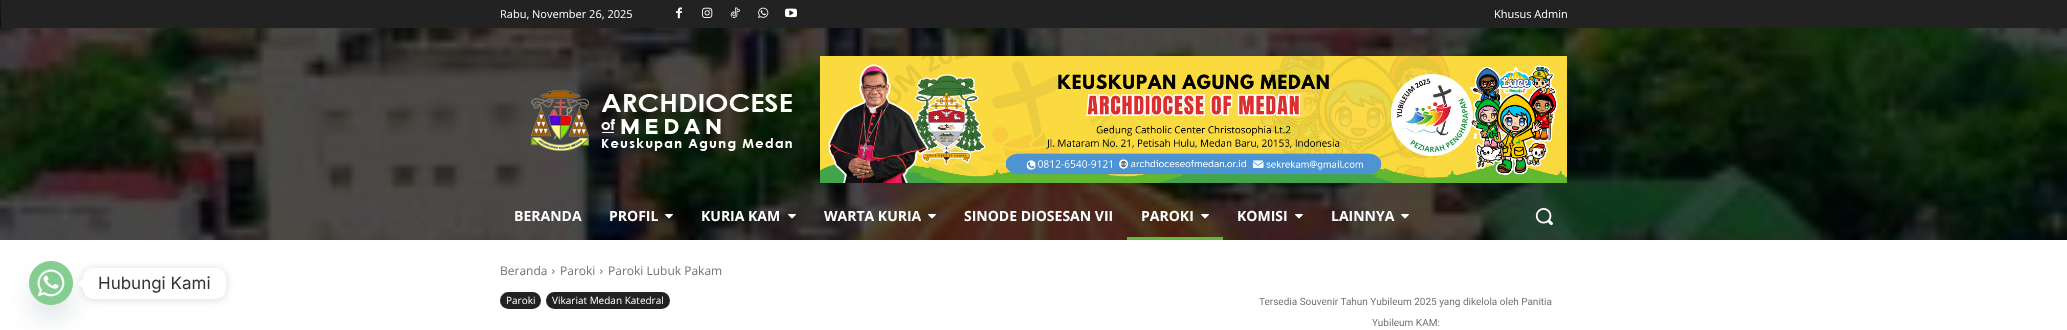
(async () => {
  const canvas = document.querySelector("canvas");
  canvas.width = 2067;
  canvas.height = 330;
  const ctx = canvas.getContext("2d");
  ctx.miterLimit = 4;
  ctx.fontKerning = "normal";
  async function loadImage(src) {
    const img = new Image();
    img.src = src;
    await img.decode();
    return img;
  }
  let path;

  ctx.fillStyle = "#ffffff";
  ctx.fillRect(0, 0, 2067, 330);
  ctx.fillStyle = "rgba(73, 104, 126, 0.16)";
  ctx.filter = "blur(12px)";
  ctx.beginPath();
  ctx.roundRect(29, 277, 44, 44, 22);
  ctx.fill();
  ctx.filter = "none";
  ctx.drawImage(await loadImage("img/1.png"), 29, 261, 44, 44);
  ctx.fillStyle = "rgba(0, 0, 0, 0.15)";
  ctx.filter = "blur(4px)";
  ctx.beginPath();
  ctx.roundRect(83, 269, 143, 31, 10);
  ctx.fill();
  ctx.filter = "none";
  ctx.fillStyle = "#ffffff";
  ctx.beginPath();
  ctx.roundRect(83, 268, 143, 31, 10);
  ctx.fill();
  path = new Path2D("M83 278.5V288.5L78 283.5Z");
  ctx.fill(path);
  ctx.drawImage(await loadImage("img/2.png"), 0, 0, 2067, 240);
  ctx.fillStyle = "#222222";
  ctx.fillRect(1, 0, 2066, 28);
  ctx.drawImage(await loadImage("img/3.png"), 676, 7, 6, 12);
  ctx.drawImage(await loadImage("img/4.png"), 702, 7, 11, 11);
  ctx.drawImage(await loadImage("img/5.png"), 730, 7, 10, 11);
  ctx.drawImage(await loadImage("img/6.png"), 758, 7, 11, 11);
  ctx.drawImage(await loadImage("img/7.png"), 785, 8, 12, 10);
  ctx.drawImage(await loadImage("img/8.png"), 531, 90, 261, 61);
  ctx.drawImage(await loadImage("img/9.png"), 820, 56, 747, 127);
  ctx.drawImage(await loadImage("img/10.png"), 665, 214, 8, 5);
  ctx.drawImage(await loadImage("img/11.png"), 788, 214, 8, 5);
  ctx.drawImage(await loadImage("img/12.png"), 928, 214, 8, 5);
  ctx.drawImage(await loadImage("img/13.png"), 1201, 214, 8, 5);
  ctx.fillStyle = "#62ba39";
  ctx.fillRect(1127, 237, 96, 3);
  ctx.drawImage(await loadImage("img/14.png"), 1295, 214, 8, 5);
  ctx.drawImage(await loadImage("img/15.png"), 1401, 214, 8, 5);
  ctx.drawImage(await loadImage("img/16.png"), 1535, 208, 18, 18);
  ctx.drawImage(await loadImage("img/17.png"), 552, 269, 3, 5);
  ctx.drawImage(await loadImage("img/17.png"), 600, 269, 3, 5);
  ctx.fillStyle = "#222222";
  ctx.beginPath();
  ctx.roundRect(500, 292, 41, 17, 8.5);
  ctx.fill();
  ctx.beginPath();
  ctx.roundRect(546, 292, 124, 17, 8.5);
  ctx.fill();
  ctx.font = "17px Inter";
  ctx.fillStyle = "#333333";
  ctx.fillText("Hubungi Kami", 98, 289);
  ctx.font = "11px Open Sans";
  ctx.fillStyle = "#ffffff";
  ctx.fillText("Rabu, November 26, 2025", 500, 18);
  ctx.fillText("Khusus Admin", 1494, 18);
  ctx.font = "bold 14px Open Sans";
  for (const [text, x, y] of [
    ["BERANDA", 514, 221],
    ["PROFIL", 609, 221],
    ["KURIA KAM", 701, 221],
    ["WARTA KURIA", 824, 221],
    ["SINODE DIOSESAN VII", 964, 221],
    ["PAROKI", 1141, 221],
    ["KOMISI", 1237, 221],
    ["LAINNYA", 1331, 221],
  ]) {
    ctx.fillText(text, x, y);
  }
  ctx.font = "12px Open Sans";
  ctx.fillStyle = "#747474";
  for (const [text, x, y] of [
    ["Beranda", 500, 275],
    ["Paroki", 560, 275],
    ["Paroki Lubuk Pakam", 608, 275],
  ]) {
    ctx.fillText(text, x, y);
  }
  ctx.font = "10px Open Sans";
  ctx.fillStyle = "#ffffff";
  ctx.fillText("Paroki", 506, 304);
  ctx.fillText("Vikariat Medan Katedral", 552, 304);
  ctx.font = "10px Roboto";
  ctx.fillStyle = "#747474";
  ctx.fillText("Tersedia Souvenir Tahun Yubileum 2025 yang dikelola oleh Panitia", 1259, 305);
  ctx.fillText("Yubileum KAM:", 1372, 326);
})();
